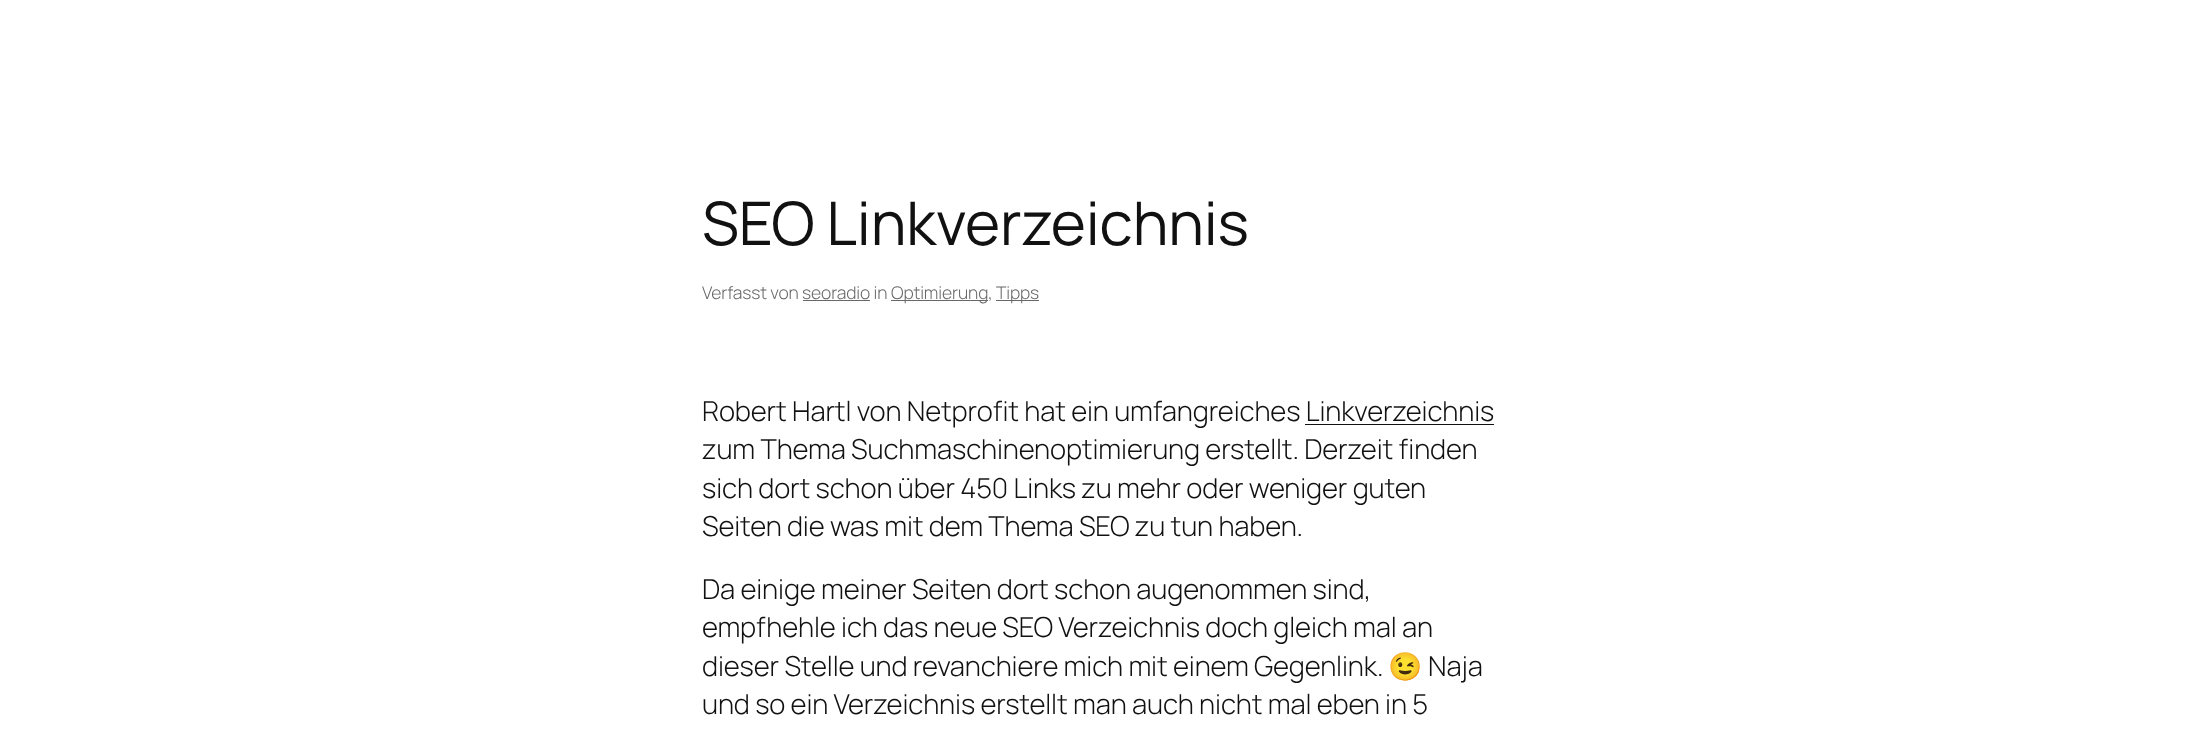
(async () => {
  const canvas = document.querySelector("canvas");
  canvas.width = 2209;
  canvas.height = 742;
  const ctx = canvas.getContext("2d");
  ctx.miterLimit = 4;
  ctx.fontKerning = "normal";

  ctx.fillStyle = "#ffffff";
  ctx.fillRect(0, 0, 2209, 742);
  for (const [x, y, w, h, color] of [
    [891, 300, 97, 1, "#686868"],
    [996, 300, 43, 1, "#686868"],
    [803, 300, 67, 1, "#686868"],
    [1305, 424, 189, 1, "#111111"],
  ]) {
    ctx.fillStyle = color;
    ctx.fillRect(x, y, w, h);
  }
  ctx.letterSpacing = "-0.12px";
  ctx.font = "60px Manrope";
  ctx.fillText("SEO Linkverzeichnis", 702, 245);
  ctx.font = "300 17.5px Manrope";
  ctx.fillStyle = "#686868";
  for (const [text, x, y] of [
    ["Verfasst von seoradio in", 702, 299],
    ["Optimierung,", 891, 299],
    ["Tipps", 996, 299],
  ]) {
    ctx.fillText(text, x, y);
  }
  ctx.font = "300 27.5px Manrope";
  ctx.fillStyle = "#111111";
  for (const [text, x, y] of [
    ["Robert Hartl von Netprofit hat ein umfangreiches Linkverzeichnis", 702, 421],
    ["zum Thema Suchmaschinenoptimierung erstellt. Derzeit finden", 702, 459],
    ["sich dort schon über 450 Links zu mehr oder weniger guten", 702, 498],
    ["Seiten die was mit dem Thema SEO zu tun haben.", 702, 536],
    ["Da einige meiner Seiten dort schon augenommen sind,", 702, 599],
    ["empfhehle ich das neue SEO Verzeichnis doch gleich mal an", 702, 637],
    ["dieser Stelle und revanchiere mich mit einem Gegenlink.", 702, 676],
  ]) {
    ctx.fillText(text, x, y);
  }
  ctx.font = "27.5px Noto Color Emoji";
  ctx.fillText("😉", 1388, 676);
  ctx.font = "300 27.5px Manrope";
  ctx.fillText("Naja", 1428, 676);
  ctx.fillText("und so ein Verzeichnis erstellt man auch nicht mal eben in 5", 702, 714);
})();
